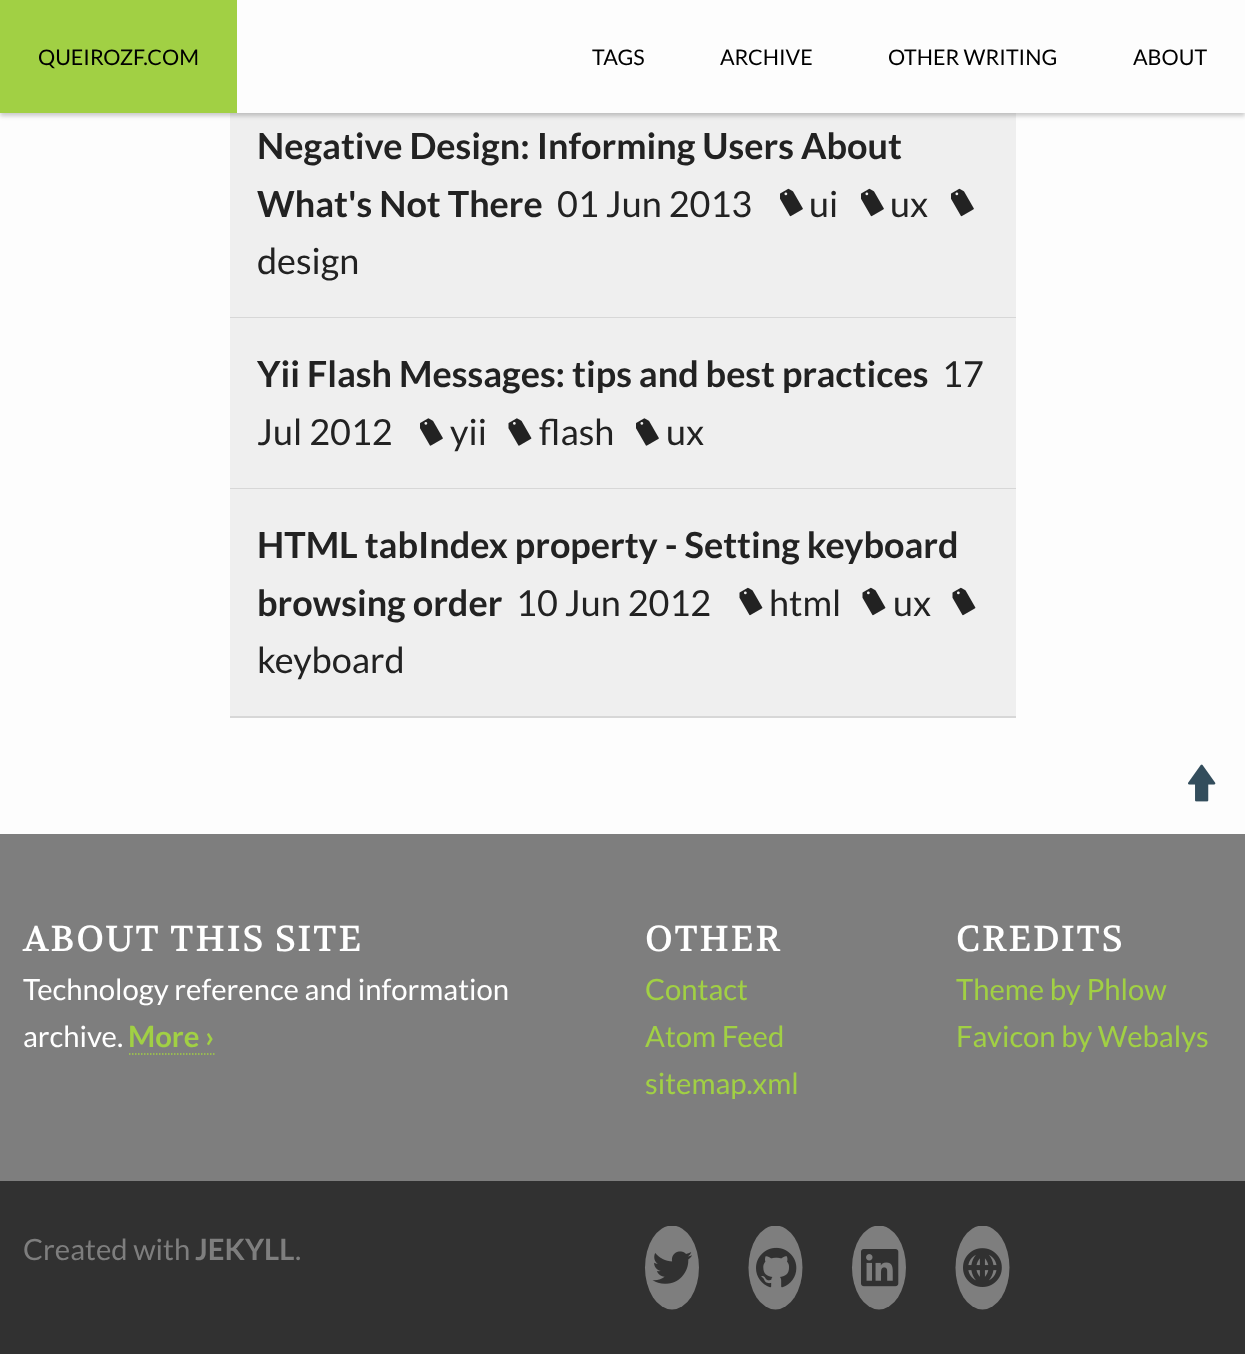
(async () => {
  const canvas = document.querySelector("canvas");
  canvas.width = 1245;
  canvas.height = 1354;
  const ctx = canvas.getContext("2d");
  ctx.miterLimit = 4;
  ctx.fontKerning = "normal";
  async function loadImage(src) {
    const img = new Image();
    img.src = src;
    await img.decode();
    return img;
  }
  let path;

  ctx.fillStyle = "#fdfdfd";
  ctx.fillRect(0, 0, 1245, 1354);
  ctx.fillStyle = "#efefef";
  ctx.fillRect(230, 113, 786, 204);
  ctx.fillStyle = "rgba(0, 0, 0, 0.2)";
  ctx.filter = "blur(2px)";
  ctx.beginPath();
  ctx.rect(0, 3, 1245, 113);
  ctx.fill();
  ctx.filter = "none";
  for (const [x, y, w, h, color] of [
    [237, 0, 1008, 113, "#fdfdfd"],
    [0, 0, 237, 113, "#a1d044"],
    [230, 317, 786, 1, "#d7d7d7"],
  ]) {
    ctx.fillStyle = color;
    ctx.fillRect(x, y, w, h);
  }
  ctx.drawImage(await loadImage("img/1.png"), 780, 188, 23, 29);
  ctx.drawImage(await loadImage("img/1.png"), 861, 188, 23, 29);
  ctx.drawImage(await loadImage("img/1.png"), 951, 188, 23, 29);
  ctx.fillRect(230, 488, 786, 1);
  ctx.fillStyle = "#efefef";
  ctx.fillRect(230, 318, 786, 170);
  ctx.drawImage(await loadImage("img/2.png"), 420, 418, 23, 28);
  ctx.drawImage(await loadImage("img/3.png"), 508, 418, 24, 28);
  ctx.drawImage(await loadImage("img/2.png"), 636, 418, 23, 28);
  ctx.fillStyle = "#d7d7d7";
  ctx.fillRect(230, 716, 786, 2);
  ctx.fillStyle = "#efefef";
  ctx.fillRect(230, 489, 786, 227);
  ctx.drawImage(await loadImage("img/4.png"), 739, 587, 24, 29);
  ctx.drawImage(await loadImage("img/4.png"), 862, 587, 24, 29);
  ctx.drawImage(await loadImage("img/4.png"), 952, 587, 24, 29);
  ctx.drawImage(await loadImage("img/5.png"), 1188, 764, 28, 38);
  ctx.fillStyle = "#7e7e7e";
  ctx.fillRect(0, 834, 1245, 347);
  path = new Path2D("M129 1054H214.5");
  ctx.strokeStyle = "#a1d044";
  ctx.lineWidth = 1.5;
  ctx.setLineDash([1.5, 1.5]);
  ctx.stroke(path);
  ctx.fillStyle = "#313131";
  ctx.fillRect(0, 1181, 1245, 173);
  ctx.save();
  ctx.beginPath();
  ctx.rect(596, 1226, 627, 114);
  ctx.clip();
  ctx.fillStyle = "#7e7e7e";
  ctx.beginPath();
  ctx.ellipse(672, 1267.5, 27, 42, 0, 0, Math.PI * 2);
  ctx.fill();
  ctx.restore();
  ctx.drawImage(await loadImage("img/6.png"), 652, 1251, 40, 33);
  ctx.save();
  ctx.beginPath();
  ctx.rect(596, 1226, 627, 114);
  ctx.clip();
  ctx.fillStyle = "#7e7e7e";
  ctx.beginPath();
  ctx.ellipse(775.5, 1267.5, 27, 42, 0, 0, Math.PI * 2);
  ctx.fill();
  ctx.restore();
  ctx.drawImage(await loadImage("img/7.png"), 756, 1247, 41, 41);
  ctx.save();
  ctx.beginPath();
  ctx.rect(596, 1226, 627, 114);
  ctx.clip();
  ctx.fillStyle = "#7e7e7e";
  ctx.beginPath();
  ctx.ellipse(879, 1267.5, 27, 42, 0, 0, Math.PI * 2);
  ctx.fill();
  ctx.restore();
  ctx.drawImage(await loadImage("img/8.png"), 861, 1249, 38, 38);
  ctx.save();
  ctx.beginPath();
  ctx.rect(596, 1226, 627, 114);
  ctx.clip();
  ctx.fillStyle = "#7e7e7e";
  ctx.beginPath();
  ctx.ellipse(982.5, 1267.5, 27, 42, 0, 0, Math.PI * 2);
  ctx.fill();
  ctx.restore();
  ctx.drawImage(await loadImage("img/9.png"), 963, 1248, 39, 39);
  ctx.font = "21.5px Lato";
  ctx.fillStyle = "#000000";
  for (const [text, x, y] of [
    ["QUEIROZF.COM", 38, 65],
    ["TAGS", 592, 65],
    ["ARCHIVE", 720, 65],
    ["OTHER WRITING", 888, 65],
    ["ABOUT", 1133, 65],
  ]) {
    ctx.fillText(text, x, y);
  }
  ctx.font = "bold 36px Lato";
  ctx.fillStyle = "#222222";
  ctx.fillText("Negative Design: Informing Users About", 257, 159);
  ctx.fillText("What's Not There", 257, 217);
  ctx.font = "36px Lato";
  for (const [text, x, y] of [
    ["ui", 809, 217],
    ["ux", 890, 217],
    ["design", 257, 274],
    ["01 Jun 2013", 557, 217],
  ]) {
    ctx.fillText(text, x, y);
  }
  ctx.font = "bold 36px Lato";
  ctx.fillText("Yii Flash Messages: tips and best practices", 257, 387);
  ctx.font = "36px Lato";
  for (const [text, x, y] of [
    ["17", 942, 387],
    ["Jul 2012", 257, 445],
    ["yii", 450, 445],
    ["flash", 539, 445],
    ["ux", 666, 445],
  ]) {
    ctx.fillText(text, x, y);
  }
  ctx.font = "bold 36px Lato";
  ctx.fillText("HTML tabIndex property - Setting keyboard", 257, 558);
  ctx.fillText("browsing order", 257, 616);
  ctx.font = "36px Lato";
  for (const [text, x, y] of [
    ["html", 769, 616],
    ["ux", 893, 616],
    ["keyboard", 257, 673],
    ["10 Jun 2012", 516, 616],
  ]) {
    ctx.fillText(text, x, y);
  }
  ctx.letterSpacing = "1.5px";
  ctx.font = "36px Volkhov";
  ctx.fillStyle = "#ffffff";
  ctx.fillText("ABOUT THIS SITE", 23, 951);
  ctx.letterSpacing = "0px";
  ctx.font = "29.25px Lato";
  ctx.fillText("Technology reference and information", 23, 1000);
  ctx.fillText("archive.", 23, 1047);
  ctx.font = "bold 29.25px Lato";
  ctx.fillStyle = "#a1d044";
  ctx.fillText("More ›", 128, 1047);
  ctx.letterSpacing = "1.5px";
  ctx.font = "36px Volkhov";
  ctx.fillStyle = "#ffffff";
  ctx.fillText("OTHER", 645, 951);
  ctx.letterSpacing = "0px";
  ctx.font = "29.25px Lato";
  ctx.fillStyle = "#a1d044";
  for (const [text, x, y] of [
    ["Contact", 645, 1000],
    ["Atom Feed", 645, 1047],
    ["sitemap.xml", 645, 1094],
  ]) {
    ctx.fillText(text, x, y);
  }
  ctx.letterSpacing = "1.5px";
  ctx.font = "36px Volkhov";
  ctx.fillStyle = "#ffffff";
  ctx.fillText("CREDITS", 956, 951);
  ctx.letterSpacing = "0px";
  ctx.font = "29.25px Lato";
  ctx.fillStyle = "#a1d044";
  ctx.fillText("Theme by Phlow", 956, 1000);
  ctx.fillText("Favicon by Webalys", 956, 1047);
  ctx.fillStyle = "#7e7e7e";
  ctx.fillText("Created with", 23, 1260);
  ctx.font = "bold 29.25px Lato";
  ctx.fillText("JEKYLL", 195, 1260);
  ctx.font = "29.25px Lato";
  ctx.fillText(".", 295, 1260);
})();
